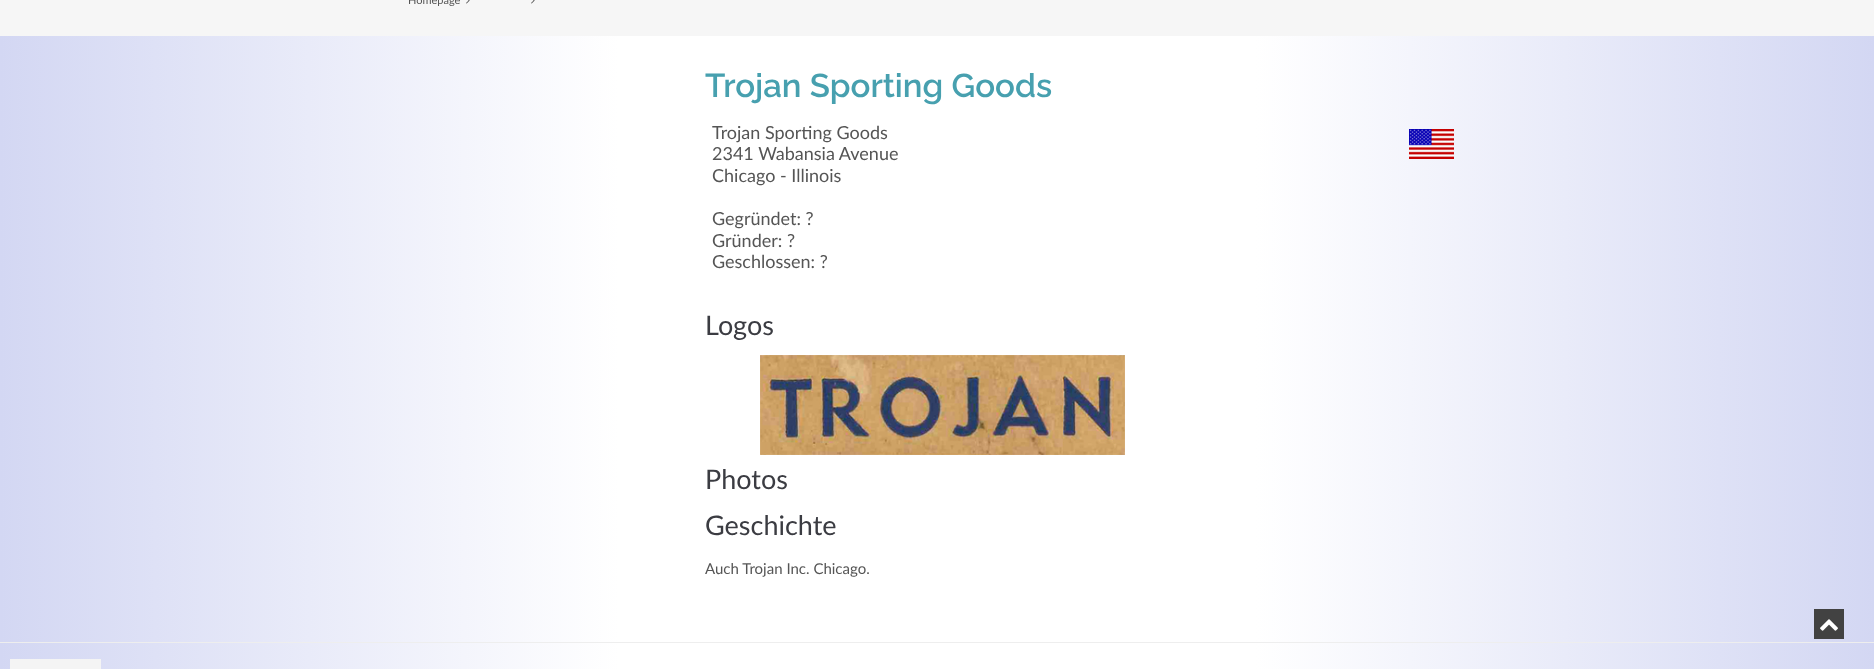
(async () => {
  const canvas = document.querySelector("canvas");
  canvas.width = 1874;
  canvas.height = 669;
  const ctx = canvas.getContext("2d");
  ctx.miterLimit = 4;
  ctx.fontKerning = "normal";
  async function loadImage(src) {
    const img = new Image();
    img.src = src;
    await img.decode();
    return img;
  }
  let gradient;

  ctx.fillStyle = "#ffffff";
  ctx.fillRect(0, 0, 1874, 669);
  gradient = ctx.createLinearGradient(0, 232, 1874, 231);
  gradient.addColorStop(0, "#d3d7f3");
  gradient.addColorStop(0.33, "#ffffff");
  gradient.addColorStop(0.67, "#ffffff");
  gradient.addColorStop(1, "#d3d7f3");
  ctx.fillStyle = gradient;
  ctx.fillRect(0, 36, 1874, 633);
  ctx.fillStyle = "#f6f6f6";
  ctx.fillRect(0, 0, 1874, 36);
  ctx.drawImage(await loadImage("img/1.png"), 466, 0, 4, 4);
  ctx.drawImage(await loadImage("img/1.png"), 531, 0, 4, 4);
  ctx.drawImage(await loadImage("img/2.png"), 1409, 129, 45, 30);
  ctx.drawImage(await loadImage("img/3.png"), 760, 355, 365, 100);
  for (const [x, y, w, h, color] of [
    [0, 642, 1874, 1, "#eeeeee"],
    [10, 659, 91, 10, "#f4f4f4"],
    [1814, 609, 30, 30, "#424242"],
  ]) {
    ctx.fillStyle = color;
    ctx.fillRect(x, y, w, h);
  }
  ctx.drawImage(await loadImage("img/4.png"), 1820, 619, 18, 12);
  ctx.font = "11px Lato";
  ctx.fillStyle = "#555555";
  ctx.fillText("Homepage", 408, 4);
  ctx.font = "600 33px Raleway";
  ctx.fillStyle = "#47a0af";
  ctx.fillText("Trojan Sporting Goods", 705, 97);
  ctx.font = "18px Lato";
  ctx.fillStyle = "#555555";
  for (const [text, x, y] of [
    ["Trojan Sporting Goods", 712, 139],
    ["2341 Wabansia Avenue", 712, 160],
    ["Chicago - Illinois", 712, 182],
    ["Gegründet: ?", 712, 225],
    ["Gründer: ?", 712, 247],
    ["Geschlossen: ?", 712, 268],
  ]) {
    ctx.fillText(text, x, y);
  }
  ctx.font = "27px Lato";
  ctx.fillStyle = "#3b3c42";
  for (const [text, x, y] of [
    ["Logos", 705, 335],
    ["Photos", 705, 489],
    ["Geschichte", 705, 535],
  ]) {
    ctx.fillText(text, x, y);
  }
  ctx.font = "15px Lato";
  ctx.fillStyle = "#555555";
  ctx.fillText("Auch Trojan Inc. Chicago.", 705, 574);
})();
